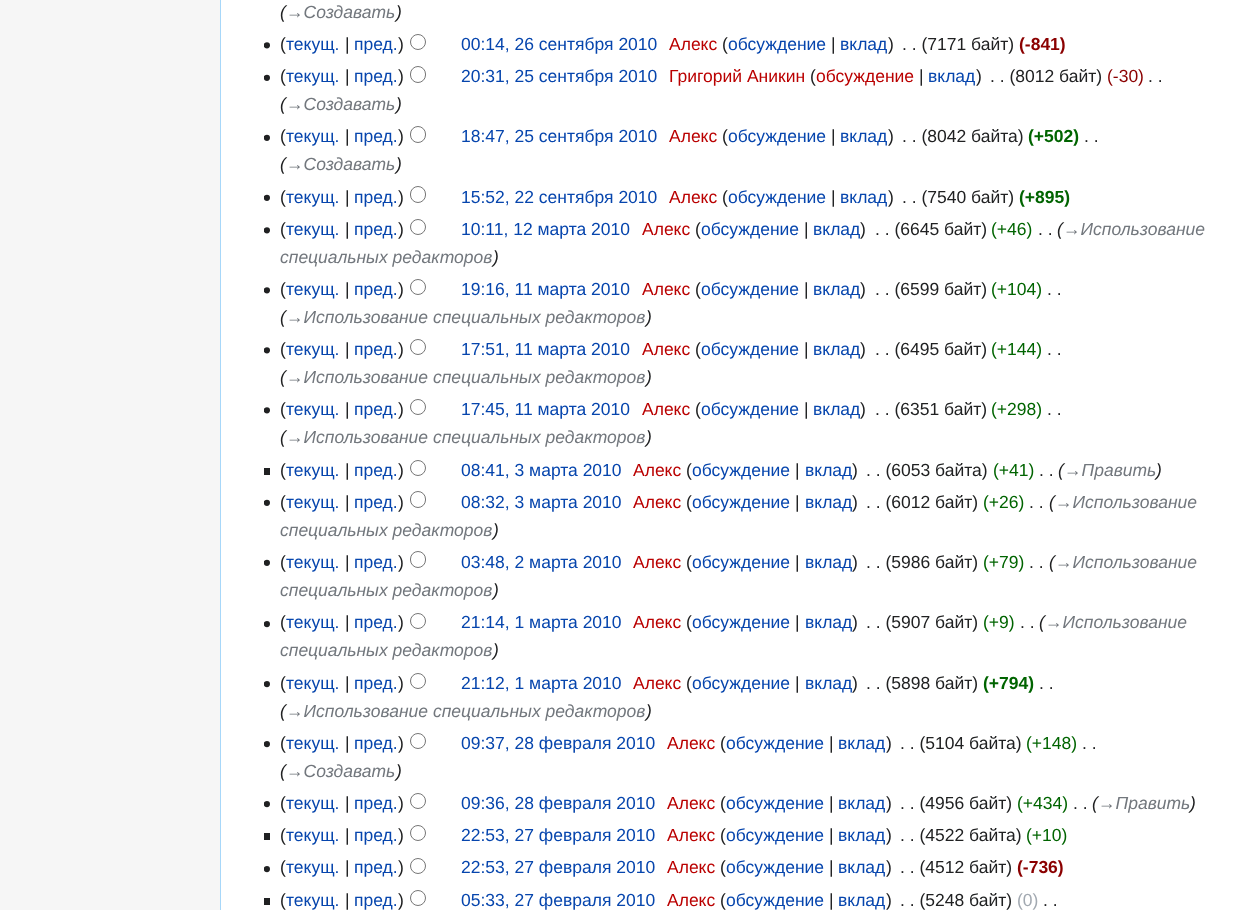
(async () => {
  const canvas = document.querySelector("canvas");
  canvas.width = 1237;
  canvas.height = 910;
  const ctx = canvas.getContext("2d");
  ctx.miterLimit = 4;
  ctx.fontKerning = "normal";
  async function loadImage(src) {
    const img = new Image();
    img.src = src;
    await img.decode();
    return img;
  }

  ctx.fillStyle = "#f6f6f6";
  ctx.fillRect(0, 0, 1237, 910);
  ctx.fillStyle = "#ffffff";
  ctx.fillRect(221, 0, 1016, 910);
  ctx.fillStyle = "#a7d7f9";
  ctx.fillRect(220, 0, 1, 910);
  ctx.drawImage(await loadImage("img/1.png"), 264, 42, 6, 7);
  ctx.beginPath();
  ctx.arc(418, 42, 7.5, 0, Math.PI * 2);
  ctx.strokeStyle = "#767676";
  ctx.stroke();
  ctx.drawImage(await loadImage("img/2.png"), 264, 74, 6, 7);
  ctx.beginPath();
  ctx.roundRect(410.5, 66.5, 15, 16, 7.5);
  ctx.stroke();
  ctx.drawImage(await loadImage("img/2.png"), 264, 134, 6, 7);
  ctx.beginPath();
  ctx.roundRect(410.5, 126.5, 15, 16, 7.5);
  ctx.stroke();
  ctx.drawImage(await loadImage("img/2.png"), 264, 194, 6, 7);
  ctx.beginPath();
  ctx.roundRect(410.5, 186.5, 15, 16, 7.5);
  ctx.stroke();
  ctx.drawImage(await loadImage("img/1.png"), 264, 227, 6, 7);
  ctx.beginPath();
  ctx.arc(418, 227, 7.5, 0, Math.PI * 2);
  ctx.stroke();
  ctx.drawImage(await loadImage("img/1.png"), 264, 287, 6, 7);
  ctx.beginPath();
  ctx.arc(418, 287, 7.5, 0, Math.PI * 2);
  ctx.stroke();
  ctx.drawImage(await loadImage("img/1.png"), 264, 347, 6, 7);
  ctx.beginPath();
  ctx.arc(418, 347, 7.5, 0, Math.PI * 2);
  ctx.stroke();
  ctx.drawImage(await loadImage("img/1.png"), 264, 407, 6, 7);
  ctx.beginPath();
  ctx.arc(418, 407, 7.5, 0, Math.PI * 2);
  ctx.stroke();
  ctx.fillStyle = "#202122";
  ctx.fillRect(264, 468, 6, 7);
  ctx.beginPath();
  ctx.arc(418, 468, 7.5, 0, Math.PI * 2);
  ctx.stroke();
  ctx.drawImage(await loadImage("img/2.png"), 264, 499, 6, 7);
  ctx.beginPath();
  ctx.roundRect(410.5, 491.5, 15, 16, 7.5);
  ctx.stroke();
  ctx.drawImage(await loadImage("img/2.png"), 264, 559, 6, 7);
  ctx.beginPath();
  ctx.roundRect(410.5, 551.5, 15, 16, 7.5);
  ctx.stroke();
  ctx.drawImage(await loadImage("img/3.png"), 264, 621, 6, 7);
  ctx.beginPath();
  ctx.arc(418, 621, 7.5, 0, Math.PI * 2);
  ctx.stroke();
  ctx.drawImage(await loadImage("img/3.png"), 264, 681, 6, 7);
  ctx.beginPath();
  ctx.arc(418, 681, 7.5, 0, Math.PI * 2);
  ctx.stroke();
  ctx.drawImage(await loadImage("img/3.png"), 264, 741, 6, 7);
  ctx.beginPath();
  ctx.arc(418, 741, 7.5, 0, Math.PI * 2);
  ctx.stroke();
  ctx.drawImage(await loadImage("img/3.png"), 264, 801, 6, 7);
  ctx.beginPath();
  ctx.arc(418, 801, 7.5, 0, Math.PI * 2);
  ctx.stroke();
  ctx.fillRect(264, 833, 6, 7);
  ctx.beginPath();
  ctx.arc(418, 833, 7.5, 0, Math.PI * 2);
  ctx.stroke();
  ctx.drawImage(await loadImage("img/3.png"), 264, 866, 6, 7);
  ctx.beginPath();
  ctx.arc(418, 866, 7.5, 0, Math.PI * 2);
  ctx.stroke();
  ctx.fillRect(264, 898, 6, 7);
  ctx.beginPath();
  ctx.arc(418, 898, 7.5, 0, Math.PI * 2);
  ctx.stroke();
  ctx.font = "italic 17.5px Liberation Sans";
  ctx.fillText("(", 280, 18);
  ctx.fillStyle = "#72777d";
  ctx.fillText("→Создавать", 286, 18);
  ctx.fillStyle = "#202122";
  ctx.fillText(")", 396, 18);
  ctx.font = "17.5px Liberation Sans";
  ctx.fillText("(", 280, 50);
  ctx.fillStyle = "#0645ad";
  ctx.fillText("текущ.", 286, 50);
  ctx.fillStyle = "#202122";
  ctx.fillText("|", 345, 50);
  ctx.fillStyle = "#0645ad";
  ctx.fillText("пред.", 354, 50);
  ctx.fillStyle = "#202122";
  ctx.fillText(")", 398, 50);
  ctx.fillStyle = "#0645ad";
  ctx.fillText("00:14, 26 сентября 2010", 461, 50);
  ctx.fillStyle = "#ba0000";
  ctx.fillText("Алекс", 669, 50);
  ctx.fillStyle = "#202122";
  ctx.fillText("(", 722, 50);
  ctx.fillStyle = "#0645ad";
  ctx.fillText("обсуждение", 728, 50);
  ctx.fillStyle = "#202122";
  ctx.fillText("|", 831, 50);
  ctx.fillStyle = "#0645ad";
  ctx.fillText("вклад", 840, 50);
  ctx.fillStyle = "#202122";
  ctx.fillText(")", 888, 50);
  ctx.fillText(". . (7171 байт)", 902, 50);
  ctx.font = "bold 17.5px Liberation Sans";
  ctx.fillStyle = "#8b0000";
  ctx.fillText("(-841)", 1019, 50);
  ctx.font = "17.5px Liberation Sans";
  ctx.fillStyle = "#202122";
  ctx.fillText("(", 280, 82);
  ctx.fillStyle = "#0645ad";
  ctx.fillText("текущ.", 286, 82);
  ctx.fillStyle = "#202122";
  ctx.fillText("|", 345, 82);
  ctx.fillStyle = "#0645ad";
  ctx.fillText("пред.", 354, 82);
  ctx.fillStyle = "#202122";
  ctx.fillText(")", 398, 82);
  ctx.fillStyle = "#0645ad";
  ctx.fillText("20:31, 25 сентября 2010", 461, 82);
  ctx.fillStyle = "#ba0000";
  ctx.fillText("Григорий Аникин", 669, 82);
  ctx.fillStyle = "#202122";
  ctx.fillText("(", 810, 82);
  ctx.fillStyle = "#ba0000";
  ctx.fillText("обсуждение", 816, 82);
  ctx.fillStyle = "#202122";
  ctx.fillText("|", 919, 82);
  ctx.fillStyle = "#0645ad";
  ctx.fillText("вклад", 928, 82);
  ctx.fillStyle = "#202122";
  ctx.fillText(")", 976, 82);
  ctx.fillText(". . (8012 байт)", 990, 82);
  ctx.fillStyle = "#8b0000";
  ctx.fillText("(-30)", 1107, 82);
  ctx.fillStyle = "#202122";
  ctx.fillText(". .", 1148, 82);
  ctx.font = "italic 17.5px Liberation Sans";
  ctx.fillText("(", 280, 110);
  ctx.fillStyle = "#72777d";
  ctx.fillText("→Создавать", 286, 110);
  ctx.fillStyle = "#202122";
  ctx.fillText(")", 396, 110);
  ctx.font = "17.5px Liberation Sans";
  ctx.fillText("(", 280, 142);
  ctx.fillStyle = "#0645ad";
  ctx.fillText("текущ.", 286, 142);
  ctx.fillStyle = "#202122";
  ctx.fillText("|", 345, 142);
  ctx.fillStyle = "#0645ad";
  ctx.fillText("пред.", 354, 142);
  ctx.fillStyle = "#202122";
  ctx.fillText(")", 398, 142);
  ctx.fillStyle = "#0645ad";
  ctx.fillText("18:47, 25 сентября 2010", 461, 142);
  ctx.fillStyle = "#ba0000";
  ctx.fillText("Алекс", 669, 142);
  ctx.fillStyle = "#202122";
  ctx.fillText("(", 722, 142);
  ctx.fillStyle = "#0645ad";
  ctx.fillText("обсуждение", 728, 142);
  ctx.fillStyle = "#202122";
  ctx.fillText("|", 831, 142);
  ctx.fillStyle = "#0645ad";
  ctx.fillText("вклад", 840, 142);
  ctx.fillStyle = "#202122";
  ctx.fillText(")", 888, 142);
  ctx.fillText(". . (8042 байта)", 902, 142);
  ctx.font = "bold 17.5px Liberation Sans";
  ctx.fillStyle = "#006400";
  ctx.fillText("(+502)", 1028, 142);
  ctx.font = "17.5px Liberation Sans";
  ctx.fillStyle = "#202122";
  ctx.fillText(". .", 1084, 142);
  ctx.font = "italic 17.5px Liberation Sans";
  ctx.fillText("(", 280, 170);
  ctx.fillStyle = "#72777d";
  ctx.fillText("→Создавать", 286, 170);
  ctx.fillStyle = "#202122";
  ctx.fillText(")", 396, 170);
  ctx.font = "17.5px Liberation Sans";
  ctx.fillText("(", 280, 203);
  ctx.fillStyle = "#0645ad";
  ctx.fillText("текущ.", 286, 203);
  ctx.fillStyle = "#202122";
  ctx.fillText("|", 345, 203);
  ctx.fillStyle = "#0645ad";
  ctx.fillText("пред.", 354, 203);
  ctx.fillStyle = "#202122";
  ctx.fillText(")", 398, 203);
  ctx.fillStyle = "#0645ad";
  ctx.fillText("15:52, 22 сентября 2010", 461, 203);
  ctx.fillStyle = "#ba0000";
  ctx.fillText("Алекс", 669, 203);
  ctx.fillStyle = "#202122";
  ctx.fillText("(", 722, 203);
  ctx.fillStyle = "#0645ad";
  ctx.fillText("обсуждение", 728, 203);
  ctx.fillStyle = "#202122";
  ctx.fillText("|", 831, 203);
  ctx.fillStyle = "#0645ad";
  ctx.fillText("вклад", 840, 203);
  ctx.fillStyle = "#202122";
  ctx.fillText(")", 888, 203);
  ctx.fillText(". . (7540 байт)", 902, 203);
  ctx.font = "bold 17.5px Liberation Sans";
  ctx.fillStyle = "#006400";
  ctx.fillText("(+895)", 1019, 203);
  ctx.font = "17.5px Liberation Sans";
  ctx.fillStyle = "#202122";
  ctx.fillText("(", 280, 235);
  ctx.fillStyle = "#0645ad";
  ctx.fillText("текущ.", 286, 235);
  ctx.fillStyle = "#202122";
  ctx.fillText("|", 345, 235);
  ctx.fillStyle = "#0645ad";
  ctx.fillText("пред.", 354, 235);
  ctx.fillStyle = "#202122";
  ctx.fillText(")", 398, 235);
  ctx.fillStyle = "#0645ad";
  ctx.fillText("10:11, 12 марта 2010", 461, 235);
  ctx.fillStyle = "#ba0000";
  ctx.fillText("Алекс", 642, 235);
  ctx.fillStyle = "#202122";
  ctx.fillText("(", 695, 235);
  ctx.fillStyle = "#0645ad";
  ctx.fillText("обсуждение", 701, 235);
  ctx.fillStyle = "#202122";
  ctx.fillText("|", 804, 235);
  ctx.fillStyle = "#0645ad";
  ctx.fillText("вклад", 813, 235);
  ctx.fillStyle = "#202122";
  ctx.fillText(")", 860, 235);
  ctx.fillText(". . (6645 байт)", 875, 235);
  ctx.fillStyle = "#006400";
  ctx.fillText("(+46)", 991, 235);
  ctx.fillStyle = "#202122";
  ctx.fillText(". .", 1038, 235);
  ctx.font = "italic 17.5px Liberation Sans";
  ctx.fillText("(", 1057, 235);
  ctx.fillStyle = "#72777d";
  ctx.fillText("→Использование", 1063, 235);
  ctx.fillText("специальных редакторов", 280, 263);
  ctx.fillStyle = "#202122";
  ctx.fillText(")", 493, 263);
  ctx.font = "17.5px Liberation Sans";
  ctx.fillText("(", 280, 295);
  ctx.fillStyle = "#0645ad";
  ctx.fillText("текущ.", 286, 295);
  ctx.fillStyle = "#202122";
  ctx.fillText("|", 345, 295);
  ctx.fillStyle = "#0645ad";
  ctx.fillText("пред.", 354, 295);
  ctx.fillStyle = "#202122";
  ctx.fillText(")", 398, 295);
  ctx.fillStyle = "#0645ad";
  ctx.fillText("19:16, 11 марта 2010", 461, 295);
  ctx.fillStyle = "#ba0000";
  ctx.fillText("Алекс", 642, 295);
  ctx.fillStyle = "#202122";
  ctx.fillText("(", 695, 295);
  ctx.fillStyle = "#0645ad";
  ctx.fillText("обсуждение", 701, 295);
  ctx.fillStyle = "#202122";
  ctx.fillText("|", 804, 295);
  ctx.fillStyle = "#0645ad";
  ctx.fillText("вклад", 813, 295);
  ctx.fillStyle = "#202122";
  ctx.fillText(")", 860, 295);
  ctx.fillText(". . (6599 байт)", 875, 295);
  ctx.fillStyle = "#006400";
  ctx.fillText("(+104)", 991, 295);
  ctx.fillStyle = "#202122";
  ctx.fillText(". .", 1047, 295);
  ctx.font = "italic 17.5px Liberation Sans";
  ctx.fillText("(", 280, 323);
  ctx.fillStyle = "#72777d";
  ctx.fillText("→Использование специальных редакторов", 286, 323);
  ctx.fillStyle = "#202122";
  ctx.fillText(")", 646, 323);
  ctx.font = "17.5px Liberation Sans";
  ctx.fillText("(", 280, 355);
  ctx.fillStyle = "#0645ad";
  ctx.fillText("текущ.", 286, 355);
  ctx.fillStyle = "#202122";
  ctx.fillText("|", 345, 355);
  ctx.fillStyle = "#0645ad";
  ctx.fillText("пред.", 354, 355);
  ctx.fillStyle = "#202122";
  ctx.fillText(")", 398, 355);
  ctx.fillStyle = "#0645ad";
  ctx.fillText("17:51, 11 марта 2010", 461, 355);
  ctx.fillStyle = "#ba0000";
  ctx.fillText("Алекс", 642, 355);
  ctx.fillStyle = "#202122";
  ctx.fillText("(", 695, 355);
  ctx.fillStyle = "#0645ad";
  ctx.fillText("обсуждение", 701, 355);
  ctx.fillStyle = "#202122";
  ctx.fillText("|", 804, 355);
  ctx.fillStyle = "#0645ad";
  ctx.fillText("вклад", 813, 355);
  ctx.fillStyle = "#202122";
  ctx.fillText(")", 860, 355);
  ctx.fillText(". . (6495 байт)", 875, 355);
  ctx.fillStyle = "#006400";
  ctx.fillText("(+144)", 991, 355);
  ctx.fillStyle = "#202122";
  ctx.fillText(". .", 1047, 355);
  ctx.font = "italic 17.5px Liberation Sans";
  ctx.fillText("(", 280, 383);
  ctx.fillStyle = "#72777d";
  ctx.fillText("→Использование специальных редакторов", 286, 383);
  ctx.fillStyle = "#202122";
  ctx.fillText(")", 646, 383);
  ctx.font = "17.5px Liberation Sans";
  ctx.fillText("(", 280, 415);
  ctx.fillStyle = "#0645ad";
  ctx.fillText("текущ.", 286, 415);
  ctx.fillStyle = "#202122";
  ctx.fillText("|", 345, 415);
  ctx.fillStyle = "#0645ad";
  ctx.fillText("пред.", 354, 415);
  ctx.fillStyle = "#202122";
  ctx.fillText(")", 398, 415);
  ctx.fillStyle = "#0645ad";
  ctx.fillText("17:45, 11 марта 2010", 461, 415);
  ctx.fillStyle = "#ba0000";
  ctx.fillText("Алекс", 642, 415);
  ctx.fillStyle = "#202122";
  ctx.fillText("(", 695, 415);
  ctx.fillStyle = "#0645ad";
  ctx.fillText("обсуждение", 701, 415);
  ctx.fillStyle = "#202122";
  ctx.fillText("|", 804, 415);
  ctx.fillStyle = "#0645ad";
  ctx.fillText("вклад", 813, 415);
  ctx.fillStyle = "#202122";
  ctx.fillText(")", 860, 415);
  ctx.fillText(". . (6351 байт)", 875, 415);
  ctx.fillStyle = "#006400";
  ctx.fillText("(+298)", 991, 415);
  ctx.fillStyle = "#202122";
  ctx.fillText(". .", 1047, 415);
  ctx.font = "italic 17.5px Liberation Sans";
  ctx.fillText("(", 280, 443);
  ctx.fillStyle = "#72777d";
  ctx.fillText("→Использование специальных редакторов", 286, 443);
  ctx.fillStyle = "#202122";
  ctx.fillText(")", 646, 443);
  ctx.font = "17.5px Liberation Sans";
  ctx.fillText("(", 280, 476);
  ctx.fillStyle = "#0645ad";
  ctx.fillText("текущ.", 286, 476);
  ctx.fillStyle = "#202122";
  ctx.fillText("|", 345, 476);
  ctx.fillStyle = "#0645ad";
  ctx.fillText("пред.", 354, 476);
  ctx.fillStyle = "#202122";
  ctx.fillText(")", 398, 476);
  ctx.fillStyle = "#0645ad";
  ctx.fillText("08:41, 3 марта 2010", 461, 476);
  ctx.fillStyle = "#ba0000";
  ctx.fillText("Алекс", 633, 476);
  ctx.fillStyle = "#202122";
  ctx.fillText("(", 686, 476);
  ctx.fillStyle = "#0645ad";
  ctx.fillText("обсуждение", 692, 476);
  ctx.fillStyle = "#202122";
  ctx.fillText("|", 795, 476);
  ctx.fillStyle = "#0645ad";
  ctx.fillText("вклад", 805, 476);
  ctx.fillStyle = "#202122";
  ctx.fillText(")", 852, 476);
  ctx.fillText(". . (6053 байта)", 866, 476);
  ctx.fillStyle = "#006400";
  ctx.fillText("(+41)", 993, 476);
  ctx.fillStyle = "#202122";
  ctx.fillText(". .", 1039, 476);
  ctx.font = "italic 17.5px Liberation Sans";
  ctx.fillText("(", 1058, 476);
  ctx.fillStyle = "#72777d";
  ctx.fillText("→Править", 1064, 476);
  ctx.fillStyle = "#202122";
  ctx.fillText(")", 1156, 476);
  ctx.font = "17.5px Liberation Sans";
  ctx.fillText("(", 280, 508);
  ctx.fillStyle = "#0645ad";
  ctx.fillText("текущ.", 286, 508);
  ctx.fillStyle = "#202122";
  ctx.fillText("|", 345, 508);
  ctx.fillStyle = "#0645ad";
  ctx.fillText("пред.", 354, 508);
  ctx.fillStyle = "#202122";
  ctx.fillText(")", 398, 508);
  ctx.fillStyle = "#0645ad";
  ctx.fillText("08:32, 3 марта 2010", 461, 508);
  ctx.fillStyle = "#ba0000";
  ctx.fillText("Алекс", 633, 508);
  ctx.fillStyle = "#202122";
  ctx.fillText("(", 686, 508);
  ctx.fillStyle = "#0645ad";
  ctx.fillText("обсуждение", 692, 508);
  ctx.fillStyle = "#202122";
  ctx.fillText("|", 795, 508);
  ctx.fillStyle = "#0645ad";
  ctx.fillText("вклад", 805, 508);
  ctx.fillStyle = "#202122";
  ctx.fillText(")", 852, 508);
  ctx.fillText(". . (6012 байт)", 866, 508);
  ctx.fillStyle = "#006400";
  ctx.fillText("(+26)", 983, 508);
  ctx.fillStyle = "#202122";
  ctx.fillText(". .", 1029, 508);
  ctx.font = "italic 17.5px Liberation Sans";
  ctx.fillText("(", 1049, 508);
  ctx.fillStyle = "#72777d";
  ctx.fillText("→Использование", 1055, 508);
  ctx.fillText("специальных редакторов", 280, 536);
  ctx.fillStyle = "#202122";
  ctx.fillText(")", 493, 536);
  ctx.font = "17.5px Liberation Sans";
  ctx.fillText("(", 280, 568);
  ctx.fillStyle = "#0645ad";
  ctx.fillText("текущ.", 286, 568);
  ctx.fillStyle = "#202122";
  ctx.fillText("|", 345, 568);
  ctx.fillStyle = "#0645ad";
  ctx.fillText("пред.", 354, 568);
  ctx.fillStyle = "#202122";
  ctx.fillText(")", 398, 568);
  ctx.fillStyle = "#0645ad";
  ctx.fillText("03:48, 2 марта 2010", 461, 568);
  ctx.fillStyle = "#ba0000";
  ctx.fillText("Алекс", 633, 568);
  ctx.fillStyle = "#202122";
  ctx.fillText("(", 686, 568);
  ctx.fillStyle = "#0645ad";
  ctx.fillText("обсуждение", 692, 568);
  ctx.fillStyle = "#202122";
  ctx.fillText("|", 795, 568);
  ctx.fillStyle = "#0645ad";
  ctx.fillText("вклад", 805, 568);
  ctx.fillStyle = "#202122";
  ctx.fillText(")", 852, 568);
  ctx.fillText(". . (5986 байт)", 866, 568);
  ctx.fillStyle = "#006400";
  ctx.fillText("(+79)", 983, 568);
  ctx.fillStyle = "#202122";
  ctx.fillText(". .", 1029, 568);
  ctx.font = "italic 17.5px Liberation Sans";
  ctx.fillText("(", 1049, 568);
  ctx.fillStyle = "#72777d";
  ctx.fillText("→Использование", 1055, 568);
  ctx.fillText("специальных редакторов", 280, 596);
  ctx.fillStyle = "#202122";
  ctx.fillText(")", 493, 596);
  ctx.font = "17.5px Liberation Sans";
  ctx.fillText("(", 280, 628);
  ctx.fillStyle = "#0645ad";
  ctx.fillText("текущ.", 286, 628);
  ctx.fillStyle = "#202122";
  ctx.fillText("|", 345, 628);
  ctx.fillStyle = "#0645ad";
  ctx.fillText("пред.", 354, 628);
  ctx.fillStyle = "#202122";
  ctx.fillText(")", 398, 628);
  ctx.fillStyle = "#0645ad";
  ctx.fillText("21:14, 1 марта 2010", 461, 628);
  ctx.fillStyle = "#ba0000";
  ctx.fillText("Алекс", 633, 628);
  ctx.fillStyle = "#202122";
  ctx.fillText("(", 686, 628);
  ctx.fillStyle = "#0645ad";
  ctx.fillText("обсуждение", 692, 628);
  ctx.fillStyle = "#202122";
  ctx.fillText("|", 795, 628);
  ctx.fillStyle = "#0645ad";
  ctx.fillText("вклад", 805, 628);
  ctx.fillStyle = "#202122";
  ctx.fillText(")", 852, 628);
  ctx.fillText(". . (5907 байт)", 866, 628);
  ctx.fillStyle = "#006400";
  ctx.fillText("(+9)", 983, 628);
  ctx.fillStyle = "#202122";
  ctx.fillText(". .", 1020, 628);
  ctx.font = "italic 17.5px Liberation Sans";
  ctx.fillText("(", 1039, 628);
  ctx.fillStyle = "#72777d";
  ctx.fillText("→Использование", 1045, 628);
  ctx.fillText("специальных редакторов", 280, 656);
  ctx.fillStyle = "#202122";
  ctx.fillText(")", 493, 656);
  ctx.font = "17.5px Liberation Sans";
  ctx.fillText("(", 280, 689);
  ctx.fillStyle = "#0645ad";
  ctx.fillText("текущ.", 286, 689);
  ctx.fillStyle = "#202122";
  ctx.fillText("|", 345, 689);
  ctx.fillStyle = "#0645ad";
  ctx.fillText("пред.", 354, 689);
  ctx.fillStyle = "#202122";
  ctx.fillText(")", 398, 689);
  ctx.fillStyle = "#0645ad";
  ctx.fillText("21:12, 1 марта 2010", 461, 689);
  ctx.fillStyle = "#ba0000";
  ctx.fillText("Алекс", 633, 689);
  ctx.fillStyle = "#202122";
  ctx.fillText("(", 686, 689);
  ctx.fillStyle = "#0645ad";
  ctx.fillText("обсуждение", 692, 689);
  ctx.fillStyle = "#202122";
  ctx.fillText("|", 795, 689);
  ctx.fillStyle = "#0645ad";
  ctx.fillText("вклад", 805, 689);
  ctx.fillStyle = "#202122";
  ctx.fillText(")", 852, 689);
  ctx.fillText(". . (5898 байт)", 866, 689);
  ctx.font = "bold 17.5px Liberation Sans";
  ctx.fillStyle = "#006400";
  ctx.fillText("(+794)", 983, 689);
  ctx.font = "17.5px Liberation Sans";
  ctx.fillStyle = "#202122";
  ctx.fillText(". .", 1039, 689);
  ctx.font = "italic 17.5px Liberation Sans";
  ctx.fillText("(", 280, 717);
  ctx.fillStyle = "#72777d";
  ctx.fillText("→Использование специальных редакторов", 286, 717);
  ctx.fillStyle = "#202122";
  ctx.fillText(")", 646, 717);
  ctx.font = "17.5px Liberation Sans";
  ctx.fillText("(", 280, 749);
  ctx.fillStyle = "#0645ad";
  ctx.fillText("текущ.", 286, 749);
  ctx.fillStyle = "#202122";
  ctx.fillText("|", 345, 749);
  ctx.fillStyle = "#0645ad";
  ctx.fillText("пред.", 354, 749);
  ctx.fillStyle = "#202122";
  ctx.fillText(")", 398, 749);
  ctx.fillStyle = "#0645ad";
  ctx.fillText("09:37, 28 февраля 2010", 461, 749);
  ctx.fillStyle = "#ba0000";
  ctx.fillText("Алекс", 667, 749);
  ctx.fillStyle = "#202122";
  ctx.fillText("(", 720, 749);
  ctx.fillStyle = "#0645ad";
  ctx.fillText("обсуждение", 726, 749);
  ctx.fillStyle = "#202122";
  ctx.fillText("|", 829, 749);
  ctx.fillStyle = "#0645ad";
  ctx.fillText("вклад", 838, 749);
  ctx.fillStyle = "#202122";
  ctx.fillText(")", 886, 749);
  ctx.fillText(". . (5104 байта)", 900, 749);
  ctx.fillStyle = "#006400";
  ctx.fillText("(+148)", 1026, 749);
  ctx.fillStyle = "#202122";
  ctx.fillText(". .", 1082, 749);
  ctx.font = "italic 17.5px Liberation Sans";
  ctx.fillText("(", 280, 777);
  ctx.fillStyle = "#72777d";
  ctx.fillText("→Создавать", 286, 777);
  ctx.fillStyle = "#202122";
  ctx.fillText(")", 396, 777);
  ctx.font = "17.5px Liberation Sans";
  ctx.fillText("(", 280, 809);
  ctx.fillStyle = "#0645ad";
  ctx.fillText("текущ.", 286, 809);
  ctx.fillStyle = "#202122";
  ctx.fillText("|", 345, 809);
  ctx.fillStyle = "#0645ad";
  ctx.fillText("пред.", 354, 809);
  ctx.fillStyle = "#202122";
  ctx.fillText(")", 398, 809);
  ctx.fillStyle = "#0645ad";
  ctx.fillText("09:36, 28 февраля 2010", 461, 809);
  ctx.fillStyle = "#ba0000";
  ctx.fillText("Алекс", 667, 809);
  ctx.fillStyle = "#202122";
  ctx.fillText("(", 720, 809);
  ctx.fillStyle = "#0645ad";
  ctx.fillText("обсуждение", 726, 809);
  ctx.fillStyle = "#202122";
  ctx.fillText("|", 829, 809);
  ctx.fillStyle = "#0645ad";
  ctx.fillText("вклад", 838, 809);
  ctx.fillStyle = "#202122";
  ctx.fillText(")", 886, 809);
  ctx.fillText(". . (4956 байт)", 900, 809);
  ctx.fillStyle = "#006400";
  ctx.fillText("(+434)", 1017, 809);
  ctx.fillStyle = "#202122";
  ctx.fillText(". .", 1073, 809);
  ctx.font = "italic 17.5px Liberation Sans";
  ctx.fillText("(", 1092, 809);
  ctx.fillStyle = "#72777d";
  ctx.fillText("→Править", 1098, 809);
  ctx.fillStyle = "#202122";
  ctx.fillText(")", 1190, 809);
  ctx.font = "17.5px Liberation Sans";
  ctx.fillText("(", 280, 841);
  ctx.fillStyle = "#0645ad";
  ctx.fillText("текущ.", 286, 841);
  ctx.fillStyle = "#202122";
  ctx.fillText("|", 345, 841);
  ctx.fillStyle = "#0645ad";
  ctx.fillText("пред.", 354, 841);
  ctx.fillStyle = "#202122";
  ctx.fillText(")", 398, 841);
  ctx.fillStyle = "#0645ad";
  ctx.fillText("22:53, 27 февраля 2010", 461, 841);
  ctx.fillStyle = "#ba0000";
  ctx.fillText("Алекс", 667, 841);
  ctx.fillStyle = "#202122";
  ctx.fillText("(", 720, 841);
  ctx.fillStyle = "#0645ad";
  ctx.fillText("обсуждение", 726, 841);
  ctx.fillStyle = "#202122";
  ctx.fillText("|", 829, 841);
  ctx.fillStyle = "#0645ad";
  ctx.fillText("вклад", 838, 841);
  ctx.fillStyle = "#202122";
  ctx.fillText(")", 886, 841);
  ctx.fillText(". . (4522 байта)", 900, 841);
  ctx.fillStyle = "#006400";
  ctx.fillText("(+10)", 1026, 841);
  ctx.fillStyle = "#202122";
  ctx.fillText("(", 280, 873);
  ctx.fillStyle = "#0645ad";
  ctx.fillText("текущ.", 286, 873);
  ctx.fillStyle = "#202122";
  ctx.fillText("|", 345, 873);
  ctx.fillStyle = "#0645ad";
  ctx.fillText("пред.", 354, 873);
  ctx.fillStyle = "#202122";
  ctx.fillText(")", 398, 873);
  ctx.fillStyle = "#0645ad";
  ctx.fillText("22:53, 27 февраля 2010", 461, 873);
  ctx.fillStyle = "#ba0000";
  ctx.fillText("Алекс", 667, 873);
  ctx.fillStyle = "#202122";
  ctx.fillText("(", 720, 873);
  ctx.fillStyle = "#0645ad";
  ctx.fillText("обсуждение", 726, 873);
  ctx.fillStyle = "#202122";
  ctx.fillText("|", 829, 873);
  ctx.fillStyle = "#0645ad";
  ctx.fillText("вклад", 838, 873);
  ctx.fillStyle = "#202122";
  ctx.fillText(")", 886, 873);
  ctx.fillText(". . (4512 байт)", 900, 873);
  ctx.font = "bold 17.5px Liberation Sans";
  ctx.fillStyle = "#8b0000";
  ctx.fillText("(-736)", 1017, 873);
  ctx.font = "17.5px Liberation Sans";
  ctx.fillStyle = "#202122";
  ctx.fillText("(", 280, 906);
  ctx.fillStyle = "#0645ad";
  ctx.fillText("текущ.", 286, 906);
  ctx.fillStyle = "#202122";
  ctx.fillText("|", 345, 906);
  ctx.fillStyle = "#0645ad";
  ctx.fillText("пред.", 354, 906);
  ctx.fillStyle = "#202122";
  ctx.fillText(")", 398, 906);
  ctx.fillStyle = "#0645ad";
  ctx.fillText("05:33, 27 февраля 2010", 461, 906);
  ctx.fillStyle = "#ba0000";
  ctx.fillText("Алекс", 667, 906);
  ctx.fillStyle = "#202122";
  ctx.fillText("(", 720, 906);
  ctx.fillStyle = "#0645ad";
  ctx.fillText("обсуждение", 726, 906);
  ctx.fillStyle = "#202122";
  ctx.fillText("|", 829, 906);
  ctx.fillStyle = "#0645ad";
  ctx.fillText("вклад", 838, 906);
  ctx.fillStyle = "#202122";
  ctx.fillText(")", 886, 906);
  ctx.fillText(". . (5248 байт)", 900, 906);
  ctx.fillStyle = "#a2a9b1";
  ctx.fillText("(0)", 1017, 906);
  ctx.fillStyle = "#202122";
  ctx.fillText(". .", 1043, 906);
})();
